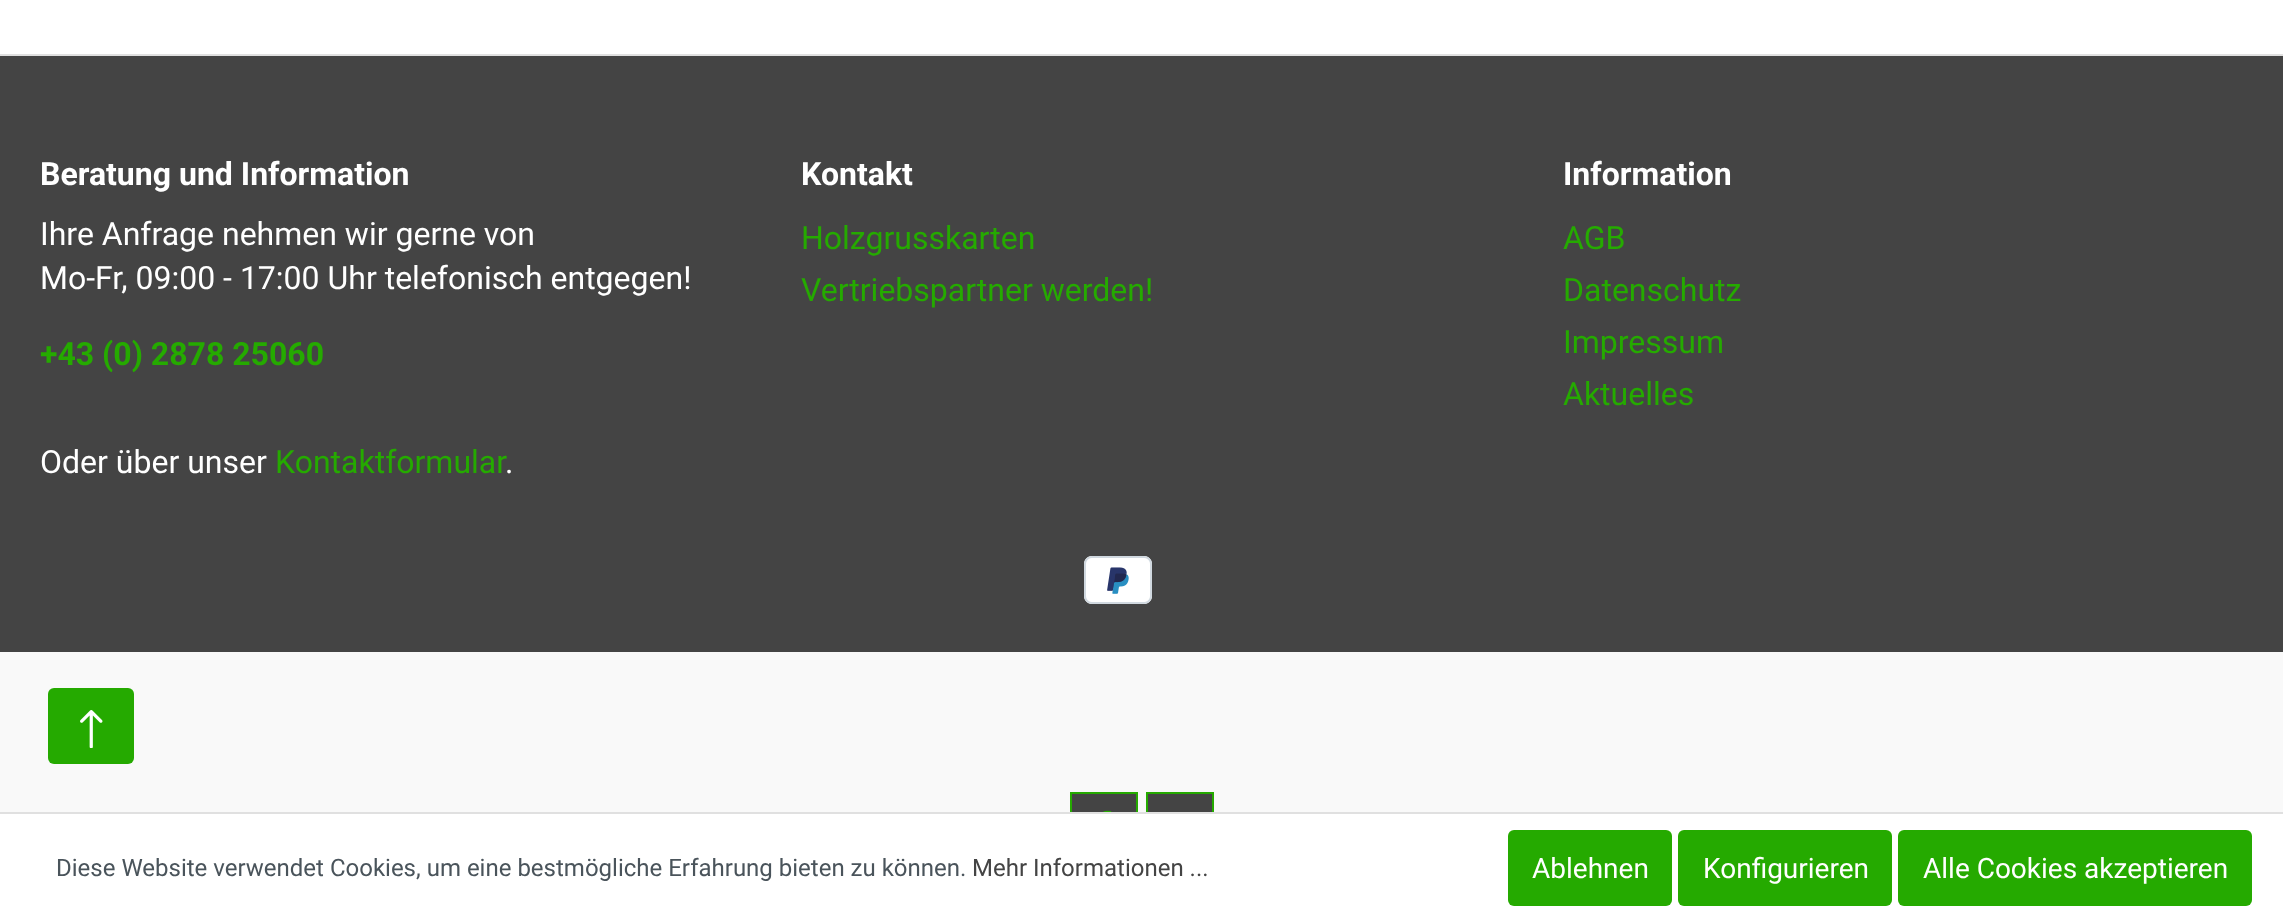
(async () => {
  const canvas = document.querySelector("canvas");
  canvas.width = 2283;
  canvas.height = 922;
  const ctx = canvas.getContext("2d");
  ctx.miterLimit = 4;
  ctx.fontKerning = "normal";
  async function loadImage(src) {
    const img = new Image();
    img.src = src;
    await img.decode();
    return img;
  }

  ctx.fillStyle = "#ffffff";
  ctx.fillRect(0, 0, 2283, 922);
  ctx.fillStyle = "#444444";
  ctx.fillRect(0, 56, 2283, 596);
  ctx.fillStyle = "#e0e0e0";
  ctx.fillRect(0, 54, 2283, 2);
  ctx.drawImage(await loadImage("img/1.png"), 1084, 556, 68, 48);
  ctx.fillStyle = "#f9f9f9";
  ctx.fillRect(0, 652, 2283, 160);
  ctx.fillStyle = "#444444";
  ctx.fillRect(1072, 794, 64, 18);
  ctx.strokeStyle = "#25aa00";
  ctx.lineWidth = 2;
  ctx.strokeRect(1071, 793, 66, 66);
  ctx.drawImage(await loadImage("img/2.png"), 1103, 810, 9, 2);
  ctx.fillRect(1148, 794, 64, 18);
  ctx.strokeRect(1147, 793, 66, 66);
  ctx.fillStyle = "#25aa00";
  ctx.beginPath();
  ctx.roundRect(48, 688, 86, 76, 6);
  ctx.fill();
  ctx.drawImage(await loadImage("img/3.png"), 80, 710, 23, 38);
  ctx.fillStyle = "#ffffff";
  ctx.fillRect(1070, 814, 144, 46);
  ctx.fillStyle = "#e0e0e0";
  ctx.fillRect(0, 812, 2283, 2);
  ctx.fillStyle = "#25aa00";
  ctx.beginPath();
  ctx.roundRect(1508, 830, 164, 76, 6);
  ctx.fill();
  ctx.beginPath();
  ctx.roundRect(1678, 830, 214, 76, 6);
  ctx.fill();
  ctx.beginPath();
  ctx.roundRect(1898, 830, 354, 76, 6);
  ctx.fill();
  ctx.font = "bold 32px Roboto";
  ctx.fillStyle = "#ffffff";
  ctx.fillText("Beratung und Information", 40, 185);
  ctx.font = "32px Roboto";
  ctx.fillText("Ihre Anfrage nehmen wir gerne von", 40, 245);
  ctx.fillText("Mo-Fr, 09:00 - 17:00 Uhr telefonisch entgegen!", 40, 289);
  ctx.font = "bold 32px Roboto";
  ctx.fillStyle = "#25aa00";
  ctx.fillText("+43 (0) 2878 25060", 40, 365);
  ctx.font = "32px Roboto";
  ctx.fillStyle = "#ffffff";
  ctx.fillText("Oder über unser", 40, 473);
  ctx.fillStyle = "#25aa00";
  ctx.fillText("Kontaktformular", 275, 473);
  ctx.fillStyle = "#ffffff";
  ctx.fillText(".", 505, 473);
  ctx.font = "bold 32px Roboto";
  ctx.fillText("Kontakt", 801, 185);
  ctx.font = "32px Roboto";
  ctx.fillStyle = "#25aa00";
  ctx.fillText("Holzgrusskarten", 801, 249);
  ctx.fillText("Vertriebspartner werden!", 801, 301);
  ctx.font = "bold 32px Roboto";
  ctx.fillStyle = "#ffffff";
  ctx.fillText("Information", 1563, 185);
  ctx.font = "32px Roboto";
  ctx.fillStyle = "#25aa00";
  for (const [text, x, y] of [
    ["AGB", 1563, 249],
    ["Datenschutz", 1563, 301],
    ["Impressum", 1563, 353],
    ["Aktuelles", 1563, 405],
  ]) {
    ctx.fillText(text, x, y);
  }
  ctx.font = "24px Roboto";
  ctx.fillStyle = "#4a545b";
  ctx.fillText("Diese Website verwendet Cookies, um eine bestmögliche Erfahrung bieten zu können.", 56, 876);
  ctx.fillStyle = "#444444";
  ctx.fillText("Mehr Informationen ...", 972, 876);
  ctx.font = "28px Roboto";
  ctx.fillStyle = "#ffffff";
  for (const [text, x, y] of [
    ["Ablehnen", 1532, 878],
    ["Konfigurieren", 1703, 878],
    ["Alle Cookies akzeptieren", 1923, 878],
  ]) {
    ctx.fillText(text, x, y);
  }
})();
